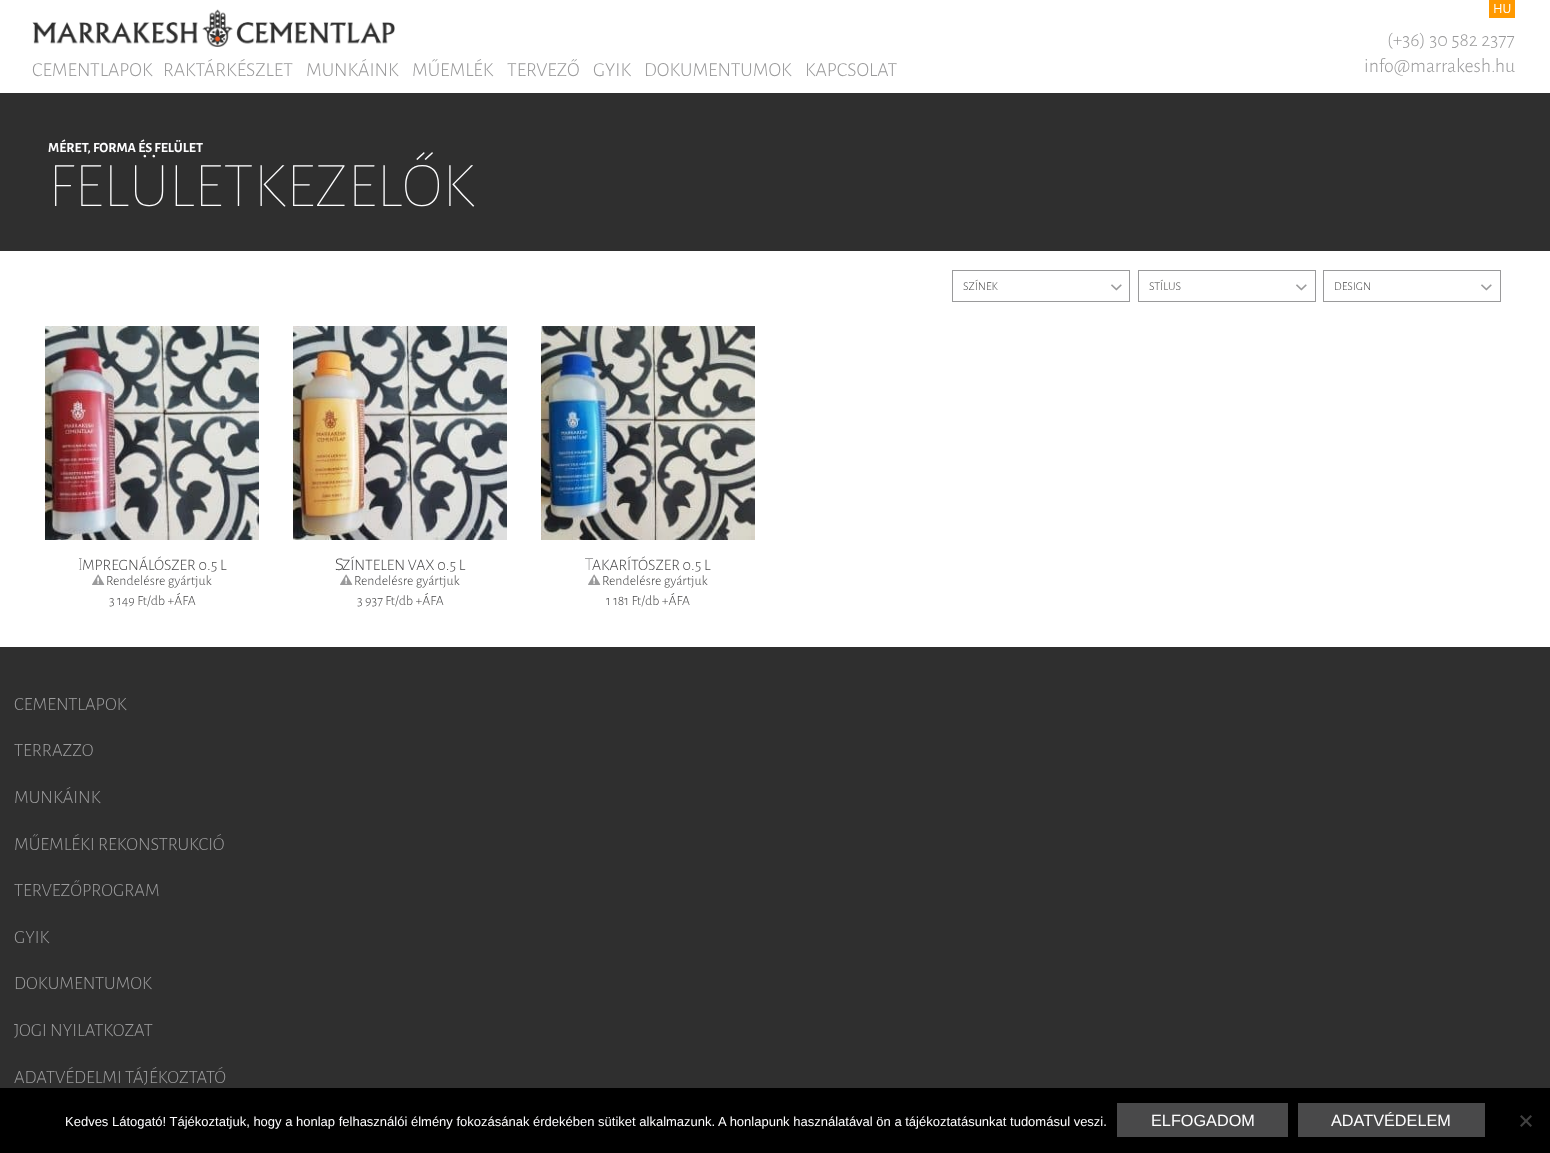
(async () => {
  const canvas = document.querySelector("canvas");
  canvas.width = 1550;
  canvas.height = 1153;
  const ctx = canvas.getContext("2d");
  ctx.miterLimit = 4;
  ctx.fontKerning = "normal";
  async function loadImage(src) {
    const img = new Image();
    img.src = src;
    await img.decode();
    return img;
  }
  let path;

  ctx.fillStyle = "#ffffff";
  ctx.fillRect(0, 0, 1550, 1153);
  ctx.drawImage(await loadImage("img/1.png"), 32, 9, 363, 38);
  ctx.fillStyle = "#ff9900";
  ctx.fillRect(1489, 0, 26, 18);
  ctx.fillStyle = "#2f2f2f";
  ctx.fillRect(0, 93, 1550, 158);
  ctx.strokeStyle = "#9a9a9b";
  ctx.strokeRect(952.5, 270.5, 177, 31);
  ctx.drawImage(await loadImage("img/2.png"), 1111, 284, 11, 7);
  ctx.strokeRect(1138.5, 270.5, 177, 31);
  ctx.drawImage(await loadImage("img/2.png"), 1296, 284, 11, 7);
  ctx.strokeRect(1323.5, 270.5, 177, 31);
  ctx.drawImage(await loadImage("img/2.png"), 1481, 284, 11, 7);
  ctx.drawImage(await loadImage("img/3.png"), 45, 326, 214, 214);
  ctx.drawImage(await loadImage("img/4.png"), 92, 574, 13, 11);
  ctx.drawImage(await loadImage("img/5.png"), 293, 326, 214, 214);
  ctx.drawImage(await loadImage("img/4.png"), 340, 574, 13, 11);
  ctx.drawImage(await loadImage("img/6.png"), 541, 326, 214, 214);
  ctx.drawImage(await loadImage("img/4.png"), 588, 574, 13, 11);
  for (const [x, y, w, h, color] of [
    [0, 647, 1550, 441, "#2f2f2f"],
    [0, 1088, 1550, 65, "#000000"],
    [1117, 1103, 171, 34, "#49494a"],
    [1298, 1103, 187, 34, "#49494a"],
  ]) {
    ctx.fillStyle = color;
    ctx.fillRect(x, y, w, h);
  }
  ctx.fillStyle = "#404040";
  path = new Path2D("M1530.5 1115L1532 1116.5L1521.5 1127L1520 1125.5Z");
  ctx.fill(path);
  path = new Path2D("M1520 1116.5L1521.5 1115L1532 1125.5L1530.5 1127Z");
  ctx.fill(path);
  ctx.font = "14px Alegreya Sans";
  ctx.fillStyle = "#fefeff";
  ctx.fillText("HU", 1493, 13);
  ctx.font = "300 20px Alegreya Sans";
  ctx.fillStyle = "#9a9a9b";
  for (const [text, x, y] of [
    ["CEMENTLAPOK", 32, 76],
    ["RAKTÁRKÉSZLET", 163, 76],
    ["MUNKÁINK", 306, 76],
    ["MŰEMLÉK", 412, 76],
    ["TERVEZŐ", 507, 76],
    ["GYIK", 593, 76],
    ["DOKUMENTUMOK", 644, 76],
    ["KAPCSOLAT", 805, 76],
    ["(+36) 30 582 2377", 1387, 46],
    ["info@marrakesh.hu", 1364, 72],
  ]) {
    ctx.fillText(text, x, y);
  }
  ctx.font = "bold 14px Alegreya Sans";
  ctx.fillStyle = "#fefeff";
  ctx.fillText("MÉRET, FORMA ÉS FELÜLET", 48, 152);
  ctx.font = "100 64px Alegreya Sans";
  ctx.fillText("FELÜLETKEZELŐK", 48, 206);
  ctx.font = "300 12px Alegreya Sans";
  ctx.fillStyle = "#49494a";
  for (const [text, x, y] of [
    ["SZÍNEK", 963, 290],
    ["STÍLUS", 1149, 290],
    ["DESIGN", 1334, 290],
  ]) {
    ctx.fillText(text, x, y);
  }
  ctx.font = "100 16px Noto Sans";
  ctx.fillText("I", 78, 570);
  ctx.font = "300 16px Alegreya Sans";
  ctx.fillText("MPREGNÁLÓSZER 0.5 L", 82, 570);
  ctx.font = "300 14px Alegreya Sans";
  ctx.fillText("Rendelésre gyártjuk", 106, 585);
  ctx.fillText("3 149 Ft/db +ÁFA", 109, 605);
  ctx.font = "300 16px Noto Sans";
  ctx.fillText("S", 335, 570);
  ctx.font = "300 16px Alegreya Sans";
  ctx.fillText("ZÍNTELEN VAX 0.5 L", 342, 570);
  ctx.font = "300 14px Alegreya Sans";
  ctx.fillText("Rendelésre gyártjuk", 354, 585);
  ctx.fillText("3 937 Ft/db +ÁFA", 357, 605);
  ctx.font = "100 16px Noto Sans";
  ctx.fillText("T", 585, 570);
  ctx.font = "300 16px Alegreya Sans";
  ctx.fillText("AKARÍTÓSZER 0.5 L", 592, 570);
  ctx.font = "300 14px Alegreya Sans";
  ctx.fillText("Rendelésre gyártjuk", 602, 585);
  ctx.fillText("1 181 Ft/db +ÁFA", 606, 605);
  ctx.font = "300 18.7px Alegreya Sans";
  ctx.fillStyle = "#9a9a9b";
  for (const [text, x, y] of [
    ["CEMENTLAPOK", 14, 710],
    ["TERRAZZO", 14, 756],
    ["MUNKÁINK", 14, 803],
    ["MŰEMLÉKI REKONSTRUKCIÓ", 14, 850],
    ["TERVEZŐPROGRAM", 14, 896],
    ["GYIK", 14, 943],
    ["DOKUMENTUMOK", 14, 989],
    ["JOGI NYILATKOZAT", 14, 1036],
    ["ADATVÉDELMI TÁJÉKOZTATÓ", 14, 1083],
  ]) {
    ctx.fillText(text, x, y);
  }
  ctx.font = "13px Liberation Sans";
  ctx.fillStyle = "#fefeff";
  ctx.fillText("Kedves Látogató! Tájékoztatjuk, hogy a honlap felhasználói élmény fokozásának érdekében sütiket alkalmazunk. A honlapunk használatával ön a tájékoztatásunkat tudomásul veszi.", 65, 1126);
  ctx.font = "16.25px Liberation Sans";
  ctx.fillText("ELFOGADOM", 1151, 1126);
  ctx.fillText("ADATVÉDELEM", 1331, 1126);
})();
